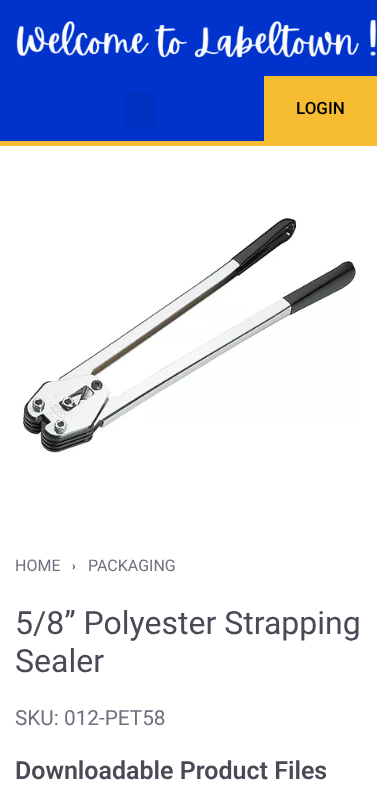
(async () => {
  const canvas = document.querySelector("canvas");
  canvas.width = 377;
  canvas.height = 795;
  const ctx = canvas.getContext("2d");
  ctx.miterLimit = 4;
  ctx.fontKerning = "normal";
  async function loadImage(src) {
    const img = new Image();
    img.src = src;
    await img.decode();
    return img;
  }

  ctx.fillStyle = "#ffffff";
  ctx.fillRect(0, 0, 377, 795);
  ctx.fillStyle = "#f6bc32";
  ctx.fillRect(0, 141, 377, 5);
  ctx.fillStyle = "#0033cc";
  ctx.fillRect(0, 0, 377, 141);
  ctx.drawImage(await loadImage("img/1.png"), 16, 19, 361, 39);
  ctx.fillStyle = "#0030c2";
  ctx.beginPath();
  ctx.roundRect(125, 91, 30, 36, 3);
  ctx.fill();
  ctx.fillStyle = "#f6bc32";
  ctx.fillRect(264, 76, 113, 65);
  ctx.drawImage(await loadImage("img/2.png"), 21, 216, 336, 237);
  ctx.font = "500 17px Roboto";
  ctx.fillStyle = "#000000";
  ctx.fillText("LOGIN", 296, 114);
  ctx.font = "16px Roboto";
  ctx.fillStyle = "#6d717e";
  ctx.fillText("HOME", 15, 571);
  ctx.font = "600 12px Roboto";
  ctx.fillStyle = "#484b56";
  ctx.fillText("›", 72, 570);
  ctx.font = "16px Roboto";
  ctx.fillStyle = "#6d717e";
  ctx.fillText("PACKAGING", 88, 571);
  ctx.font = "32px Roboto";
  ctx.fillStyle = "#484b56";
  ctx.fillText("5/8” Polyester Strapping", 15, 634);
  ctx.fillText("Sealer", 15, 672);
  ctx.font = "20.75px Roboto";
  ctx.fillStyle = "#6d717e";
  ctx.fillText("SKU: 012-PET58", 15, 725);
  ctx.font = "600 25px Roboto";
  ctx.fillStyle = "#484b56";
  ctx.fillText("Downloadable Product Files", 15, 779);
})();
